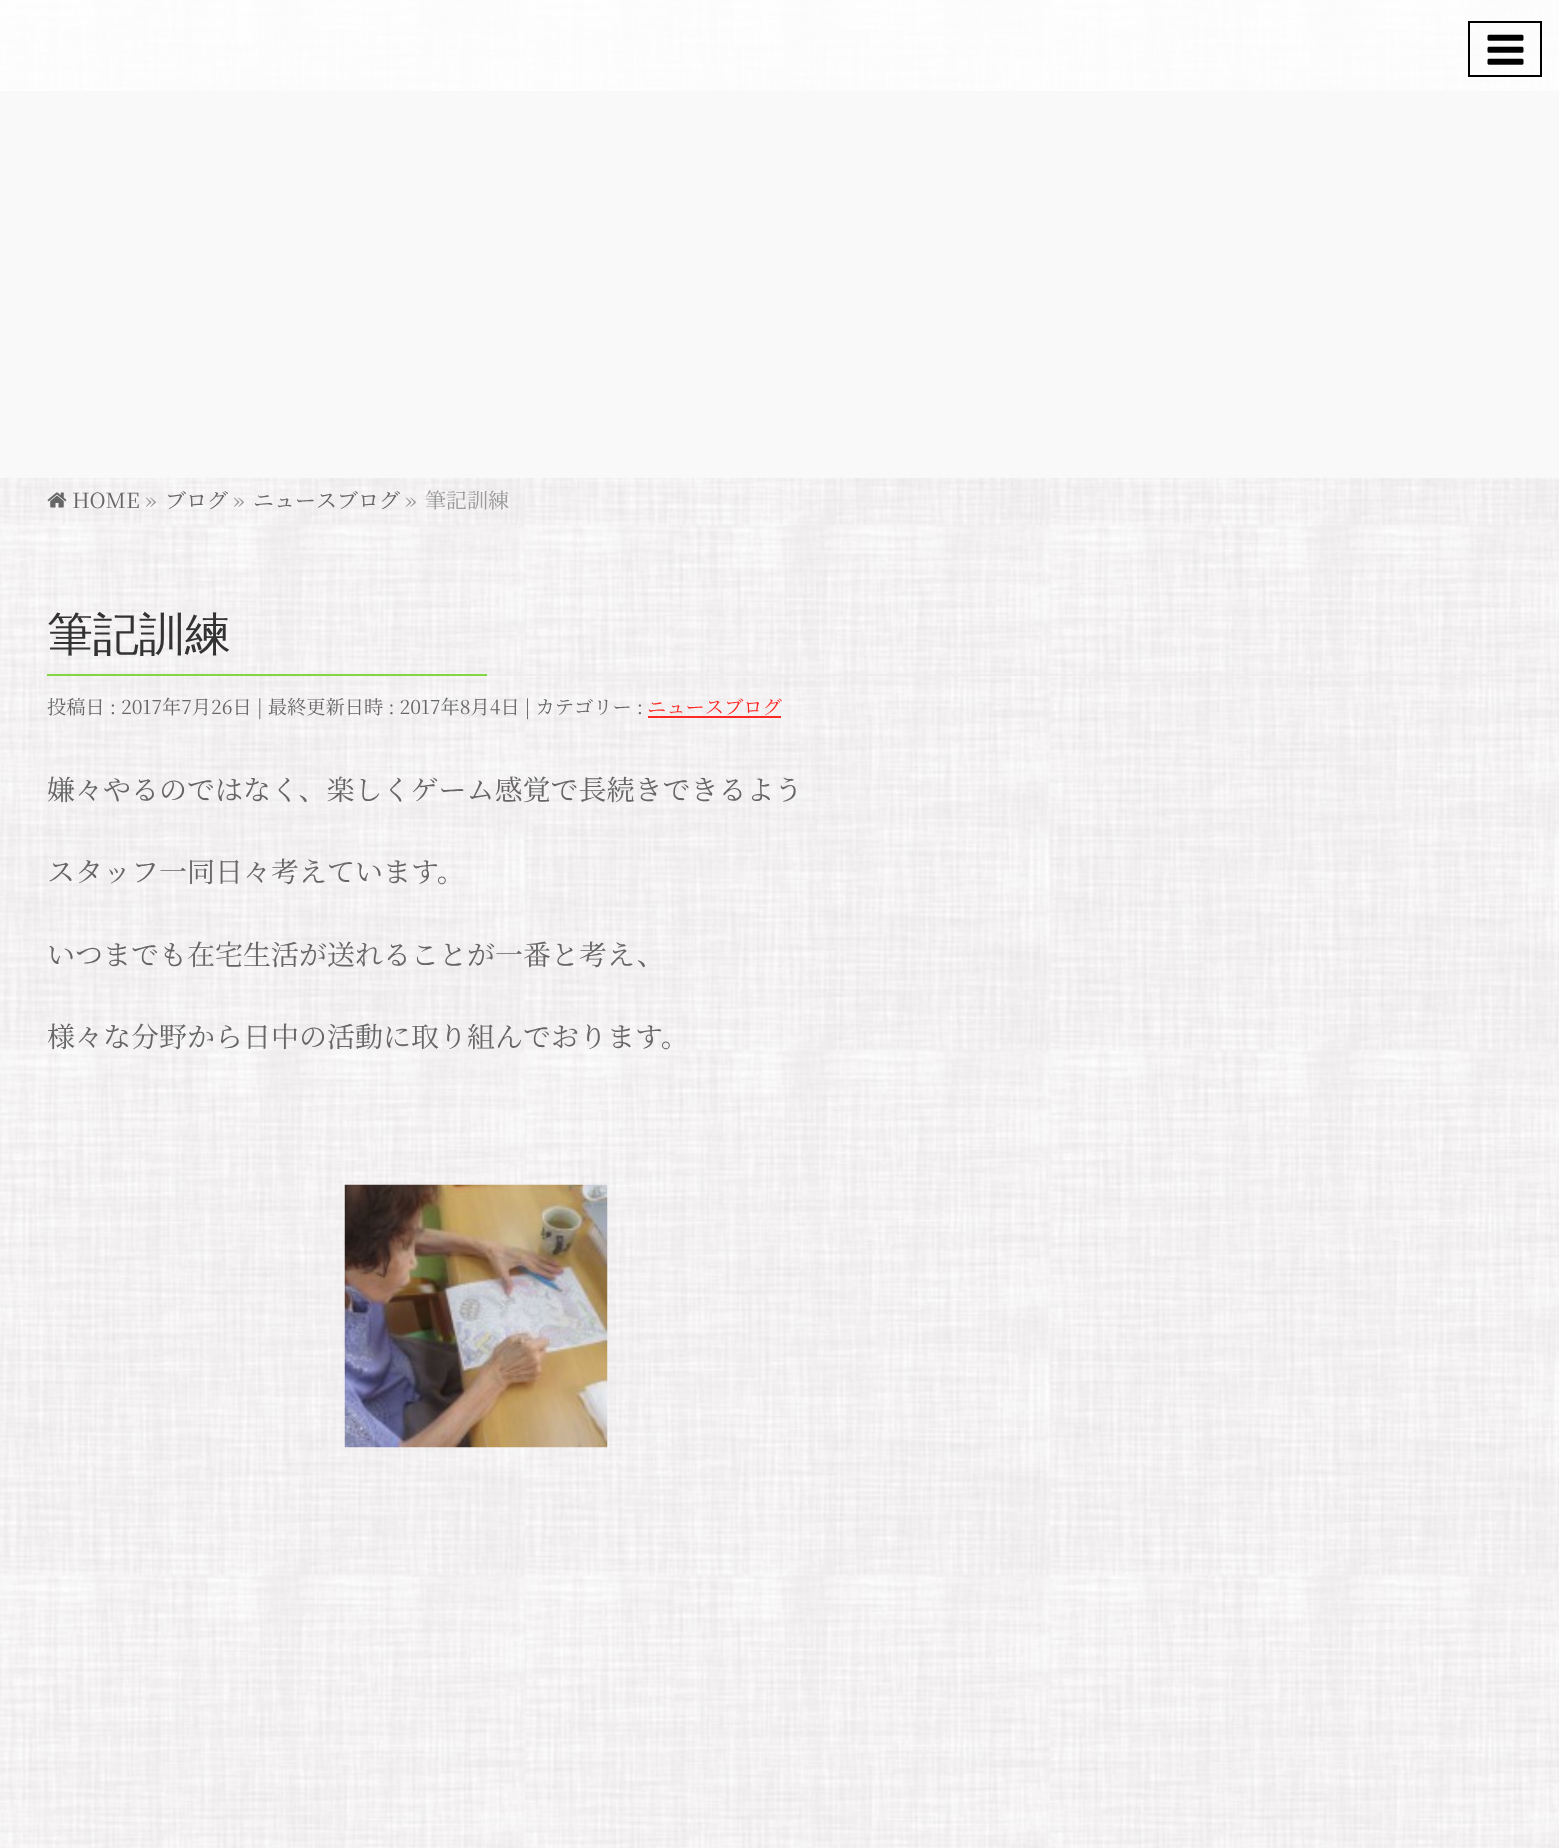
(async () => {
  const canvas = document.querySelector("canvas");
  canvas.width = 1559;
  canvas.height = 1848;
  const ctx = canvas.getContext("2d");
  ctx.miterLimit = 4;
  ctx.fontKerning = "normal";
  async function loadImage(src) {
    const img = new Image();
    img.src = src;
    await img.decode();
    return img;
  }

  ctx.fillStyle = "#ffffff";
  ctx.fillRect(0, 0, 1559, 1848);
  ctx.drawImage(await loadImage("img/1.png"), 0, 0, 1559, 1848);
  ctx.fillStyle = "rgba(255, 255, 255, 0.8)";
  ctx.fillRect(0, 0, 1559, 91);
  ctx.strokeStyle = "#000000";
  ctx.lineWidth = 2;
  ctx.strokeRect(1469, 22, 72, 54);
  ctx.drawImage(await loadImage("img/2.png"), 1487, 34, 37, 31);
  ctx.fillStyle = "#f9f9f9";
  ctx.fillRect(0, 91, 1559, 387);
  ctx.drawImage(await loadImage("img/3.png"), 47, 492, 20, 16);
  for (const [x, y, w, h, color] of [
    [487, 674, 1025, 2, "#eeeeee"],
    [47, 674, 440, 2, "#81d742"],
    [648, 716, 133, 2, "#ff2924"],
  ]) {
    ctx.fillStyle = color;
    ctx.fillRect(x, y, w, h);
  }
  ctx.drawImage(await loadImage("img/4.png"), 344, 1184, 264, 264);
  ctx.font = "21px Noto Serif JP";
  ctx.fillStyle = "#666666";
  ctx.fillText("HOME", 72, 508);
  ctx.fillStyle = "#999999";
  ctx.fillText("»", 145, 508);
  ctx.fillStyle = "#666666";
  ctx.fillText("ブログ", 165, 508);
  ctx.fillStyle = "#999999";
  ctx.fillText("»", 233, 508);
  ctx.fillStyle = "#666666";
  ctx.fillText("ニュースブログ", 253, 508);
  ctx.fillStyle = "#999999";
  ctx.fillText("»", 405, 508);
  ctx.fillText("筆記訓練", 425, 508);
  ctx.font = "500 46px WenQuanYi Zen Hei";
  ctx.fillStyle = "#333333";
  ctx.fillText("筆記訓練", 47, 650);
  ctx.font = "19.25px Noto Serif JP";
  ctx.fillStyle = "#666666";
  ctx.fillText("投稿日 : 2017年7月26日 | 最終更新日時 : 2017年8月4日 | カテゴリー :", 47, 714);
  ctx.fillStyle = "#ff2924";
  ctx.fillText("ニュースブログ", 647, 714);
  ctx.font = "28px Noto Serif JP";
  ctx.fillStyle = "#666666";
  for (const [text, x, y] of [
    ["嫌々やるのではなく、楽しくゲーム感覚で長続きできるよう", 47, 800],
    ["スタッフ一同日々考えています。", 47, 882],
    ["いつまでも在宅生活が送れることが一番と考え、", 47, 965],
    ["様々な分野から日中の活動に取り組んでおります。", 47, 1047],
  ]) {
    ctx.fillText(text, x, y);
  }
})();
